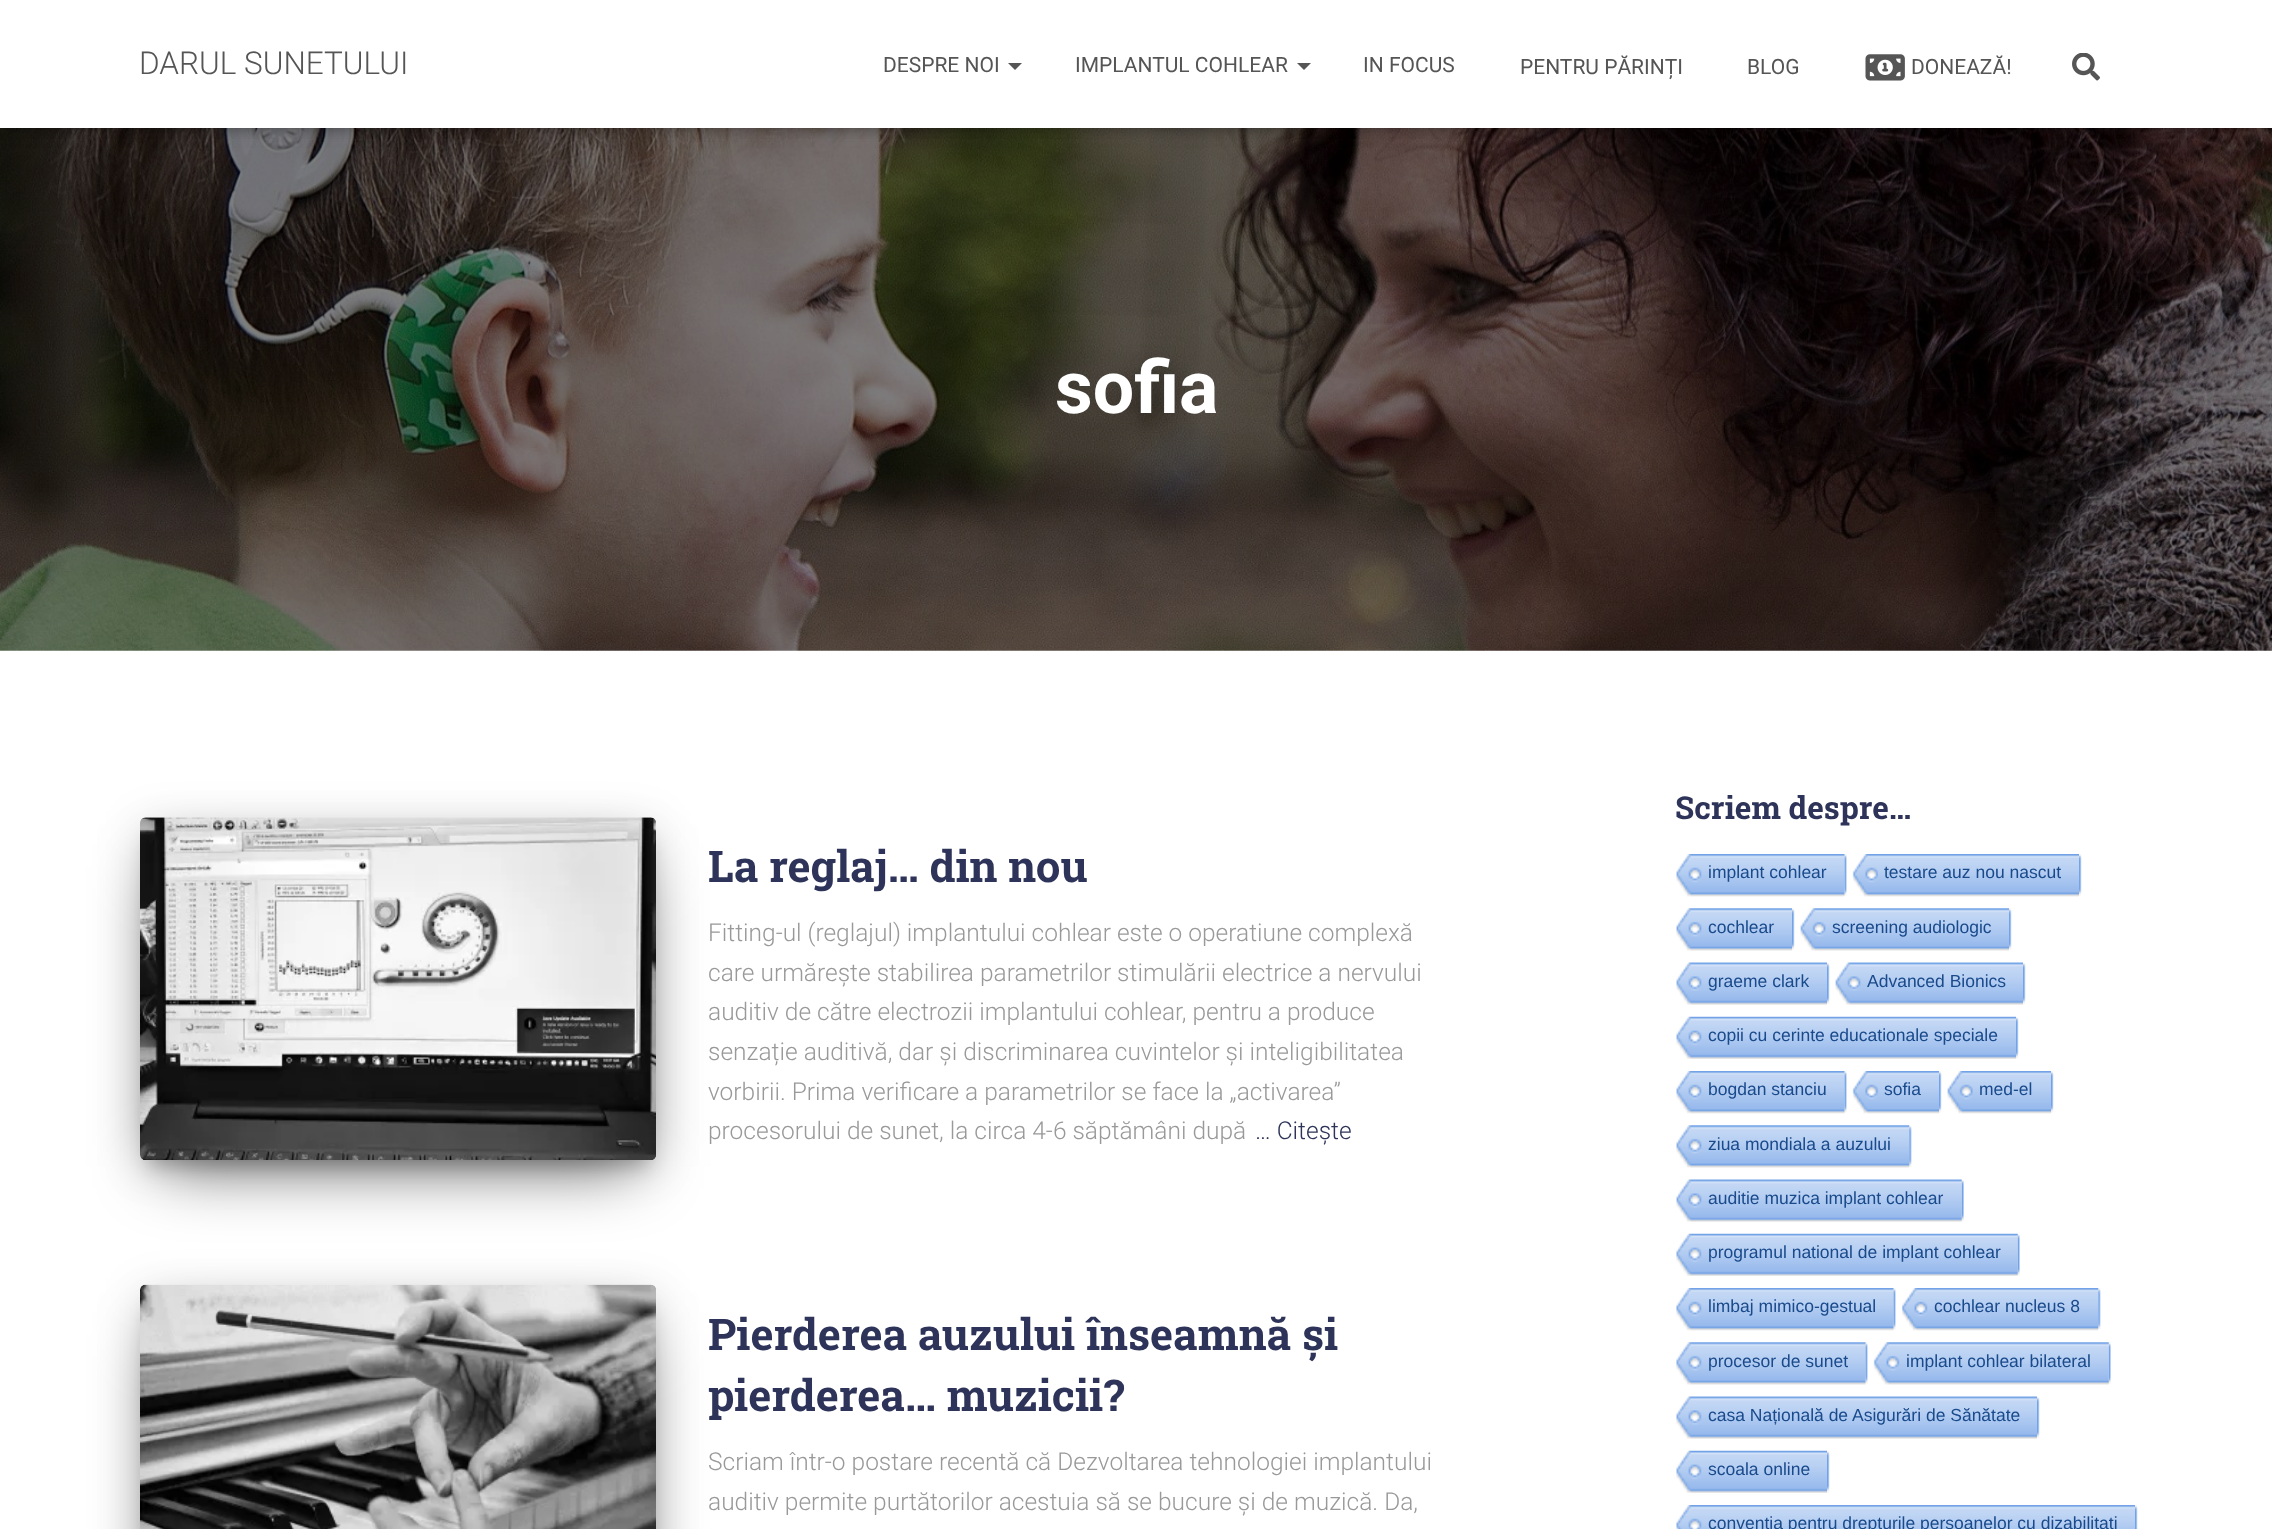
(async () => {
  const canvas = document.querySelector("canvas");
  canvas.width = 2272;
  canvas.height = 1529;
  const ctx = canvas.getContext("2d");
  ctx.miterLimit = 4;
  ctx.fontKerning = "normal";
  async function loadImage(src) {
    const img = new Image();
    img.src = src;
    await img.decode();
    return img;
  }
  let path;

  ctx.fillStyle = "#ffffff";
  ctx.fillRect(0, 0, 2272, 1529);
  ctx.drawImage(await loadImage("img/3.png"), 0, 128, 2272, 523);
  ctx.fillStyle = "rgba(0, 0, 0, 0.1)";
  ctx.filter = "blur(4.5px)";
  ctx.beginPath();
  ctx.rect(4, 11, 2266, 120);
  ctx.fill();
  ctx.filter = "none";
  ctx.fillStyle = "rgba(0, 0, 0, 0.12)";
  ctx.filter = "blur(9px)";
  ctx.beginPath();
  ctx.rect(0, 2, 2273, 128);
  ctx.fill();
  ctx.filter = "none";
  ctx.fillStyle = "rgba(0, 0, 0, 0.42)";
  ctx.filter = "blur(9px)";
  ctx.beginPath();
  ctx.rect(11, 12, 2252, 107);
  ctx.fill();
  ctx.filter = "none";
  ctx.fillStyle = "#ffffff";
  ctx.fillRect(0, 0, 2272, 128);
  ctx.fillStyle = "#555555";
  path = new Path2D("M1008 63H1022L1015 70Z");
  ctx.fill(path);
  path = new Path2D("M1297 63H1311L1304 70Z");
  ctx.fill(path);
  ctx.drawImage(await loadImage("img/1.png"), 1865, 54, 40, 27);
  ctx.drawImage(await loadImage("img/2.png"), 2072, 53, 28, 28);
  ctx.fillStyle = "rgba(0, 0, 0, 0.2)";
  ctx.filter = "blur(9px)";
  ctx.beginPath();
  ctx.rect(149, 840, 499, 326);
  ctx.fill();
  ctx.filter = "none";
  ctx.fillStyle = "rgba(0, 0, 0, 0.12)";
  ctx.filter = "blur(22px)";
  ctx.beginPath();
  ctx.roundRect(140, 824, 516, 343, 5);
  ctx.fill();
  ctx.filter = "none";
  ctx.fillStyle = "rgba(0, 0, 0, 0.56)";
  ctx.filter = "blur(33px)";
  ctx.beginPath();
  ctx.rect(161, 866, 474, 301);
  ctx.fill();
  ctx.filter = "none";
  ctx.drawImage(await loadImage("img/4.png"), 140, 817, 516, 343);
  ctx.fillStyle = "rgba(0, 0, 0, 0.2)";
  ctx.filter = "blur(9px)";
  ctx.beginPath();
  ctx.rect(149, 1307, 499, 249);
  ctx.fill();
  ctx.filter = "none";
  ctx.fillStyle = "rgba(0, 0, 0, 0.12)";
  ctx.filter = "blur(22px)";
  ctx.beginPath();
  ctx.roundRect(140, 1292, 516, 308, 5);
  ctx.fill();
  ctx.filter = "none";
  ctx.fillStyle = "rgba(0, 0, 0, 0.56)";
  ctx.filter = "blur(33px)";
  ctx.beginPath();
  ctx.rect(161, 1334, 474, 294);
  ctx.fill();
  ctx.filter = "none";
  ctx.drawImage(await loadImage("img/5.png"), 140, 1284, 516, 245);
  ctx.drawImage(await loadImage("img/6.png"), 1676, 854, 169, 43);
  ctx.drawImage(await loadImage("img/7.png"), 1844, 854, 3, 42);
  ctx.drawImage(await loadImage("img/8.png"), 1852, 854, 227, 43);
  ctx.drawImage(await loadImage("img/9.png"), 2079, 854, 3, 42);
  ctx.drawImage(await loadImage("img/10.png"), 1676, 908, 116, 43);
  ctx.drawImage(await loadImage("img/11.png"), 1792, 908, 3, 42);
  ctx.drawImage(await loadImage("img/12.png"), 1800, 908, 209, 43);
  ctx.drawImage(await loadImage("img/11.png"), 2009, 908, 3, 42);
  ctx.drawImage(await loadImage("img/13.png"), 1676, 962, 151, 43);
  ctx.drawImage(await loadImage("img/14.png"), 1827, 963, 3, 41);
  ctx.drawImage(await loadImage("img/15.png"), 1835, 962, 188, 43);
  ctx.drawImage(await loadImage("img/14.png"), 2023, 963, 3, 41);
  ctx.drawImage(await loadImage("img/16.png"), 1676, 1016, 340, 43);
  ctx.drawImage(await loadImage("img/17.png"), 2016, 1017, 3, 42);
  ctx.drawImage(await loadImage("img/18.png"), 1676, 1071, 169, 43);
  ctx.drawImage(await loadImage("img/7.png"), 1844, 1071, 3, 42);
  ctx.drawImage(await loadImage("img/19.png"), 1852, 1071, 87, 43);
  ctx.drawImage(await loadImage("img/9.png"), 1939, 1071, 3, 42);
  ctx.drawImage(await loadImage("img/20.png"), 1947, 1071, 104, 43);
  ctx.drawImage(await loadImage("img/9.png"), 2051, 1071, 3, 42);
  ctx.drawImage(await loadImage("img/21.png"), 1676, 1125, 234, 43);
  ctx.drawImage(await loadImage("img/22.png"), 1909, 1126, 3, 41);
  ctx.drawImage(await loadImage("img/23.png"), 1676, 1179, 286, 43);
  ctx.drawImage(await loadImage("img/24.png"), 1961, 1180, 3, 41);
  ctx.drawImage(await loadImage("img/25.png"), 1676, 1233, 342, 43);
  ctx.drawImage(await loadImage("img/26.png"), 2017, 1234, 3, 42);
  ctx.drawImage(await loadImage("img/27.png"), 1676, 1288, 218, 43);
  ctx.drawImage(await loadImage("img/7.png"), 1893, 1288, 3, 42);
  ctx.drawImage(await loadImage("img/28.png"), 1902, 1288, 197, 43);
  ctx.drawImage(await loadImage("img/29.png"), 2098, 1288, 3, 41);
  ctx.drawImage(await loadImage("img/30.png"), 1676, 1342, 190, 43);
  ctx.drawImage(await loadImage("img/31.png"), 1865, 1342, 3, 42);
  ctx.drawImage(await loadImage("img/32.png"), 1873, 1342, 236, 43);
  ctx.drawImage(await loadImage("img/33.png"), 2108, 1342, 3, 42);
  ctx.drawImage(await loadImage("img/34.png"), 1676, 1396, 361, 43);
  ctx.drawImage(await loadImage("img/14.png"), 2037, 1397, 3, 41);
  ctx.drawImage(await loadImage("img/35.png"), 1676, 1450, 151, 43);
  ctx.drawImage(await loadImage("img/17.png"), 1827, 1451, 3, 42);
  ctx.drawImage(await loadImage("img/36.png"), 1676, 1505, 459, 24);
  ctx.drawImage(await loadImage("img/37.png"), 2135, 1505, 3, 24);
  ctx.font = "300 31.5px Roboto";
  ctx.fillStyle = "#555555";
  ctx.fillText("DARUL SUNETULUI", 139, 74);
  ctx.font = "21px Roboto";
  for (const [text, x, y] of [
    ["DESPRE NOI", 883, 72],
    ["IMPLANTUL COHLEAR", 1075, 72],
    ["IN FOCUS", 1363, 72],
    ["PENTRU PĂRINȚI", 1520, 74],
    ["BLOG", 1747, 74],
    ["DONEAZĂ!", 1911, 74],
  ]) {
    ctx.fillText(text, x, y);
  }
  ctx.font = "bold 73.5px Roboto";
  ctx.fillStyle = "#ffffff";
  ctx.fillText("sofia", 1055, 413);
  ctx.font = "bold 43.75px Roboto Slab";
  ctx.fillStyle = "#2d3359";
  ctx.fillText("La reglaj… din nou", 708, 882);
  ctx.font = "300 24.5px Roboto";
  ctx.fillStyle = "#999999";
  for (const [text, x, y] of [
    ["Fitting-ul (reglajul) implantului cohlear este o operatiune complexă", 708, 941],
    ["care urmărește stabilirea parametrilor stimulării electrice a nervului", 708, 981],
    ["auditiv de către electrozii implantului cohlear, pentru a produce", 708, 1020],
    ["senzație auditivă, dar și discriminarea cuvintelor și inteligibilitatea", 708, 1060],
    ["vorbirii. Prima verificare a parametrilor se face la „activarea”", 708, 1100],
    ["procesorului de sunet, la circa 4-6 săptămâni după", 708, 1139],
  ]) {
    ctx.fillText(text, x, y);
  }
  ctx.fillStyle = "#2d3359";
  ctx.fillText("… Citește", 1255, 1139);
  ctx.font = "bold 43.75px Roboto Slab";
  ctx.fillText("Pierderea auzului înseamnă și", 708, 1350);
  ctx.fillText("pierderea… muzicii?", 708, 1411);
  ctx.font = "300 24.5px Roboto";
  ctx.fillStyle = "#999999";
  ctx.fillText("Scriam într-o postare recentă că Dezvoltarea tehnologiei implantului", 708, 1470);
  ctx.fillText("auditiv permite purtătorilor acestuia să se bucure și de muzică. Da,", 708, 1510);
  ctx.font = "bold 31.5px Roboto Slab";
  ctx.fillStyle = "#2d3359";
  ctx.fillText("Scriem despre…", 1675, 819);
  ctx.font = "17.5px Liberation Sans";
  ctx.fillStyle = "#194a8b";
  for (const [text, x, y] of [
    ["implant cohlear", 1708, 878],
    ["testare auz nou nascut", 1884, 878],
    ["cochlear", 1708, 933],
    ["screening audiologic", 1832, 933],
    ["graeme clark", 1708, 987],
    ["Advanced Bionics", 1867, 987],
    ["copii cu cerinte educationale speciale", 1708, 1041],
    ["bogdan stanciu", 1708, 1095],
    ["sofia", 1884, 1095],
    ["med-el", 1979, 1095],
    ["ziua mondiala a auzului", 1708, 1150],
    ["auditie muzica implant cohlear", 1708, 1204],
    ["programul national de implant cohlear", 1708, 1258],
    ["limbaj mimico-gestual", 1708, 1312],
    ["cochlear nucleus 8", 1934, 1312],
    ["procesor de sunet", 1708, 1367],
    ["implant cohlear bilateral", 1906, 1367],
    ["casa Națională de Asigurări de Sănătate", 1708, 1421],
    ["scoala online", 1708, 1475],
    ["conventia pentru drepturile persoanelor cu dizabilitati", 1708, 1529],
  ]) {
    ctx.fillText(text, x, y);
  }
})();
